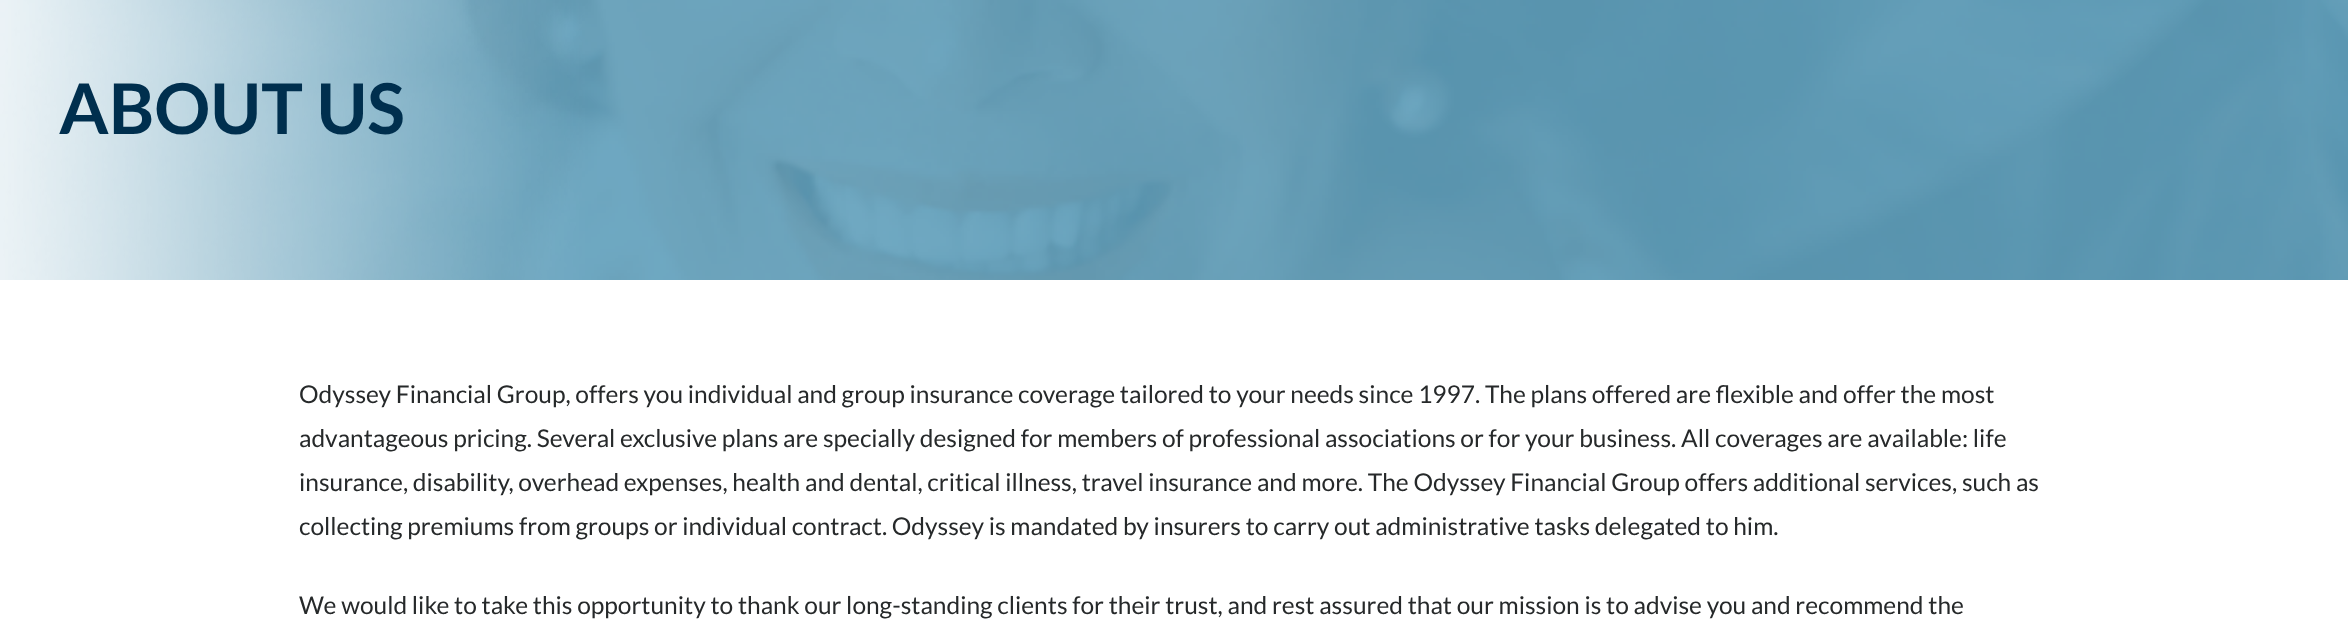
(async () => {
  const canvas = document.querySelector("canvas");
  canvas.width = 2348;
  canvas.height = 641;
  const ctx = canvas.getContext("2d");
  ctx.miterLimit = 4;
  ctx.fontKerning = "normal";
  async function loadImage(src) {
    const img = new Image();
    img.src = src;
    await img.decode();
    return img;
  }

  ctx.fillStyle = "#ffffff";
  ctx.fillRect(0, 0, 2348, 641);
  ctx.drawImage(await loadImage("img/1.png"), 0, 0, 2348, 280);
  ctx.font = "bold 70px Lato";
  ctx.fillStyle = "#002f4e";
  ctx.fillText("ABOUT US", 59, 134);
  ctx.font = "24.5px Lato";
  ctx.fillStyle = "#26292a";
  for (const [text, x, y] of [
    ["Odyssey Financial Group, offers you individual and group insurance coverage tailored to your needs since 1997. The plans offered are flexible and offer the most", 299, 403],
    ["advantageous pricing. Several exclusive plans are specially designed for members of professional associations or for your business. All coverages are available: life", 299, 447],
    ["insurance, disability, overhead expenses, health and dental, critical illness, travel insurance and more. The Odyssey Financial Group offers additional services, such as", 299, 491],
    ["collecting premiums from groups or individual contract. Odyssey is mandated by insurers to carry out administrative tasks delegated to him.", 299, 535],
    ["We would like to take this opportunity to thank our long-standing clients for their trust, and rest assured that our mission is to advise you and recommend the", 299, 614],
  ]) {
    ctx.fillText(text, x, y);
  }
})();
